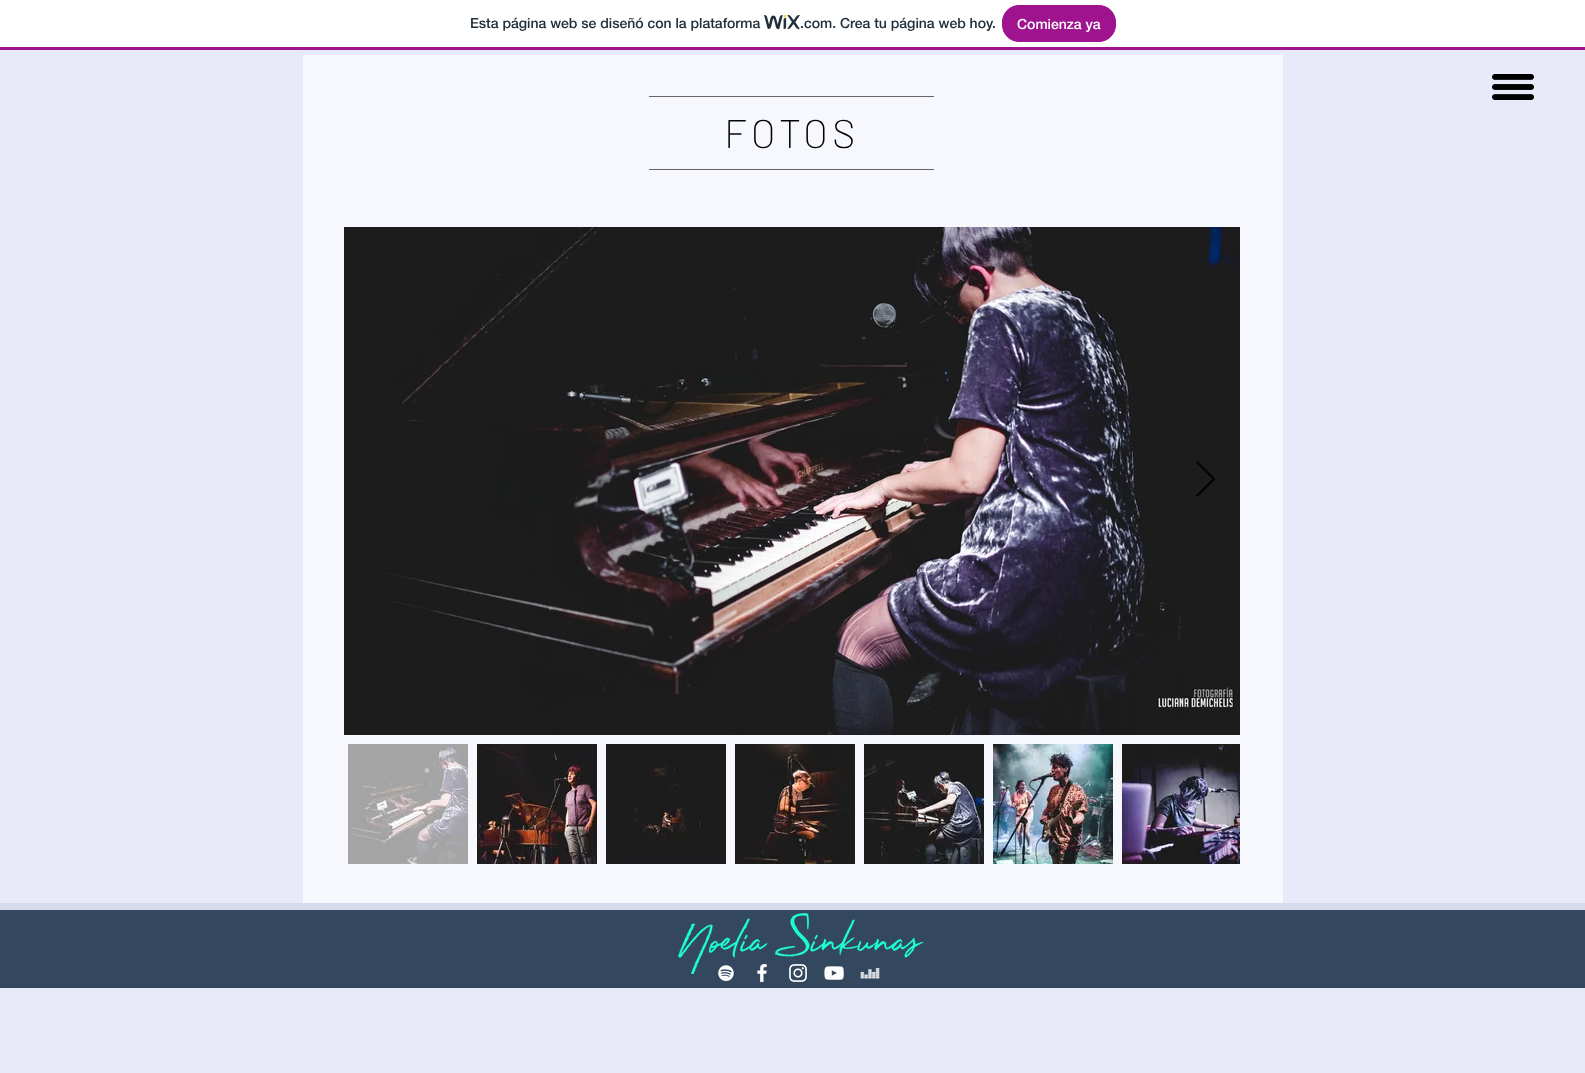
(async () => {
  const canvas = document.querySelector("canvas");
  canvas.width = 1585;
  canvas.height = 1073;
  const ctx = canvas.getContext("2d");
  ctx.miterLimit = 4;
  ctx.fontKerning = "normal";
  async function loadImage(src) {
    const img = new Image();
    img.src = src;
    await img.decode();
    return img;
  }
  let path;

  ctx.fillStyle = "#ffffff";
  ctx.fillRect(0, 0, 1585, 1073);
  ctx.fillStyle = "#a0138e";
  ctx.fillRect(0, 47, 1585, 3);
  ctx.drawImage(await loadImage("img/1.png"), 764, 15, 36, 15);
  ctx.beginPath();
  ctx.roundRect(1002.5, 5.5, 113, 36, 16.5);
  ctx.fill();
  ctx.strokeStyle = "#a0138e";
  ctx.stroke();
  ctx.fillStyle = "#e8eaf9";
  ctx.fillRect(0, 50, 1585, 1023);
  ctx.fillStyle = "#f6f8fe";
  ctx.fillRect(303, 55, 980, 848);
  ctx.drawImage(await loadImage("img/2.png"), 1492, 74, 42, 26);
  ctx.fillStyle = "#666666";
  ctx.fillRect(649, 96, 285, 1);
  ctx.fillRect(649, 169, 285, 1);
  ctx.drawImage(await loadImage("img/3.png"), 344, 227, 896, 508);
  ctx.fillStyle = "#030303";
  path = new Path2D("M1196 462.5L1197.5 461L1215.5 479L1197.5 497L1196 495.5L1212.5 479Z");
  ctx.fill(path);
  ctx.drawImage(await loadImage("img/4.png"), 348, 744, 120, 120);
  ctx.drawImage(await loadImage("img/5.png"), 477, 744, 120, 120);
  ctx.drawImage(await loadImage("img/6.png"), 606, 744, 120, 120);
  ctx.drawImage(await loadImage("img/7.png"), 735, 744, 120, 120);
  ctx.drawImage(await loadImage("img/8.png"), 864, 744, 120, 120);
  ctx.drawImage(await loadImage("img/9.png"), 993, 744, 120, 120);
  ctx.drawImage(await loadImage("img/10.png"), 1122, 744, 118, 120);
  ctx.fillStyle = "#33475f";
  ctx.fillRect(0, 910, 1585, 78);
  ctx.fillStyle = "#d8dbeb";
  ctx.fillRect(0, 903, 1585, 7);
  ctx.drawImage(await loadImage("img/12.png"), 718, 965, 16, 17);
  ctx.drawImage(await loadImage("img/13.png"), 757, 963, 10, 20);
  ctx.drawImage(await loadImage("img/14.png"), 789, 964, 18, 18);
  ctx.drawImage(await loadImage("img/15.png"), 824, 966, 20, 14);
  ctx.drawImage(await loadImage("img/16.png"), 860, 967, 20, 12);
  ctx.drawImage(await loadImage("img/11.png"), 678, 913, 246, 61);
  ctx.font = "500 14px 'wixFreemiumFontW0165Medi'";
  ctx.fillStyle = "#20303c";
  ctx.fillText("Esta página web se diseñó con la plataforma", 470, 28);
  ctx.fillText(".com. Crea tu página web hoy.", 800, 28);
  ctx.fillStyle = "#ffffff";
  ctx.fillText("Comienza ya", 1017, 29);
  ctx.letterSpacing = "4px";
  ctx.font = "200 40px Barlow";
  ctx.fillStyle = "#000000";
  ctx.fillText("FOTOS", 724, 148);
})();
